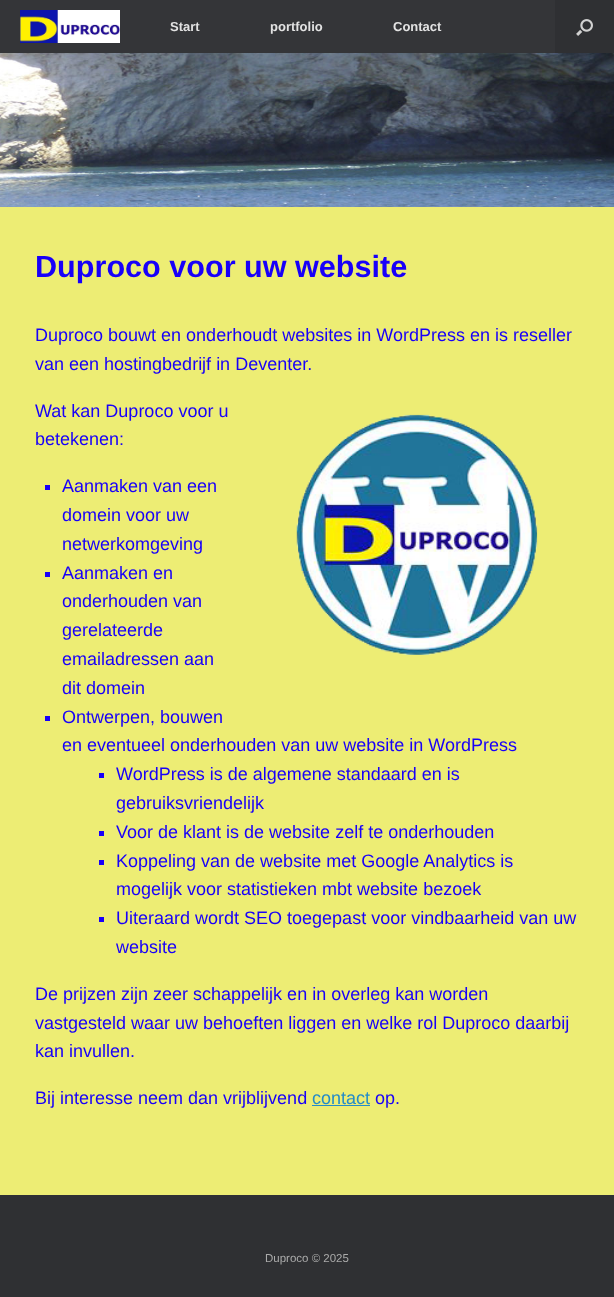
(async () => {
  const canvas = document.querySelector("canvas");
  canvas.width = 614;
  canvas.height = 1297;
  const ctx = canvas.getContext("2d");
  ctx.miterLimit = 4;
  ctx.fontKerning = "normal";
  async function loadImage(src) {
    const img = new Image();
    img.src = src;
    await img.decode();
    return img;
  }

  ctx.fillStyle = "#2f3033";
  ctx.fillRect(0, 0, 614, 1297);
  ctx.fillStyle = "#343538";
  ctx.fillRect(0, 0, 555, 53);
  ctx.drawImage(await loadImage("img/1.png"), 20, 10, 100, 33);
  ctx.drawImage(await loadImage("img/2.png"), 576, 19, 17, 17);
  ctx.drawImage(await loadImage("img/3.png"), 0, 53, 614, 154);
  ctx.fillStyle = "#eded74";
  ctx.fillRect(0, 207, 614, 988);
  ctx.drawImage(await loadImage("img/4.png"), 296, 414, 242, 241);
  for (const [x, y, w, h, color] of [
    [45, 485, 5, 5, "#1800f9"],
    [45, 572, 5, 5, "#1800f9"],
    [45, 716, 5, 5, "#1800f9"],
    [99, 773, 5, 5, "#1800f9"],
    [99, 831, 5, 5, "#1800f9"],
    [99, 860, 5, 5, "#1800f9"],
    [99, 917, 5, 5, "#1800f9"],
    [312, 1105, 58, 1, "#248cc8"],
  ]) {
    ctx.fillStyle = color;
    ctx.fillRect(x, y, w, h);
  }
  ctx.font = "bold 13px Liberation Sans";
  ctx.fillStyle = "#e2e2e2";
  for (const [text, x, y] of [
    ["Start", 170, 31],
    ["portfolio", 270, 31],
    ["Contact", 393, 31],
  ]) {
    ctx.fillText(text, x, y);
  }
  ctx.font = "bold 30.6px Liberation Sans";
  ctx.fillStyle = "#1800f9";
  ctx.fillText("Duproco voor uw website", 35, 277);
  ctx.font = "18px Liberation Sans";
  for (const [text, x, y] of [
    ["Duproco bouwt en onderhoudt websites in WordPress en is reseller", 35, 341],
    ["van een hostingbedrijf in Deventer.", 35, 370],
    ["Wat kan Duproco voor u", 35, 417],
    ["betekenen:", 35, 445],
    ["Aanmaken van een", 62, 492],
    ["domein voor uw", 62, 521],
    ["netwerkomgeving", 62, 550],
    ["Aanmaken en", 62, 579],
    ["onderhouden van", 62, 607],
    ["gerelateerde", 62, 636],
    ["emailadressen aan", 62, 665],
    ["dit domein", 62, 694],
    ["Ontwerpen, bouwen", 62, 723],
    ["en eventueel onderhouden van uw website in WordPress", 62, 751],
    ["WordPress is de algemene standaard en is", 116, 780],
    ["gebruiksvriendelijk", 116, 809],
    ["Voor de klant is de website zelf te onderhouden", 116, 838],
    ["Koppeling van de website met Google Analytics is", 116, 867],
    ["mogelijk voor statistieken mbt website bezoek", 116, 895],
    ["Uiteraard wordt SEO toegepast voor vindbaarheid van uw", 116, 924],
    ["website", 116, 953],
    ["De prijzen zijn zeer schappelijk en in overleg kan worden", 35, 1000],
    ["vastgesteld waar uw behoeften liggen en welke rol Duproco daarbij", 35, 1029],
    ["kan invullen.", 35, 1057],
    ["Bij interesse neem dan vrijblijvend", 35, 1104],
  ]) {
    ctx.fillText(text, x, y);
  }
  ctx.fillStyle = "#248cc8";
  ctx.fillText("contact", 312, 1104);
  ctx.fillStyle = "#1800f9";
  ctx.fillText("op.", 375, 1104);
  ctx.font = "11.5px Liberation Sans";
  ctx.fillStyle = "#aaaaaa";
  ctx.fillText("Duproco © 2025", 265, 1262);
})();
